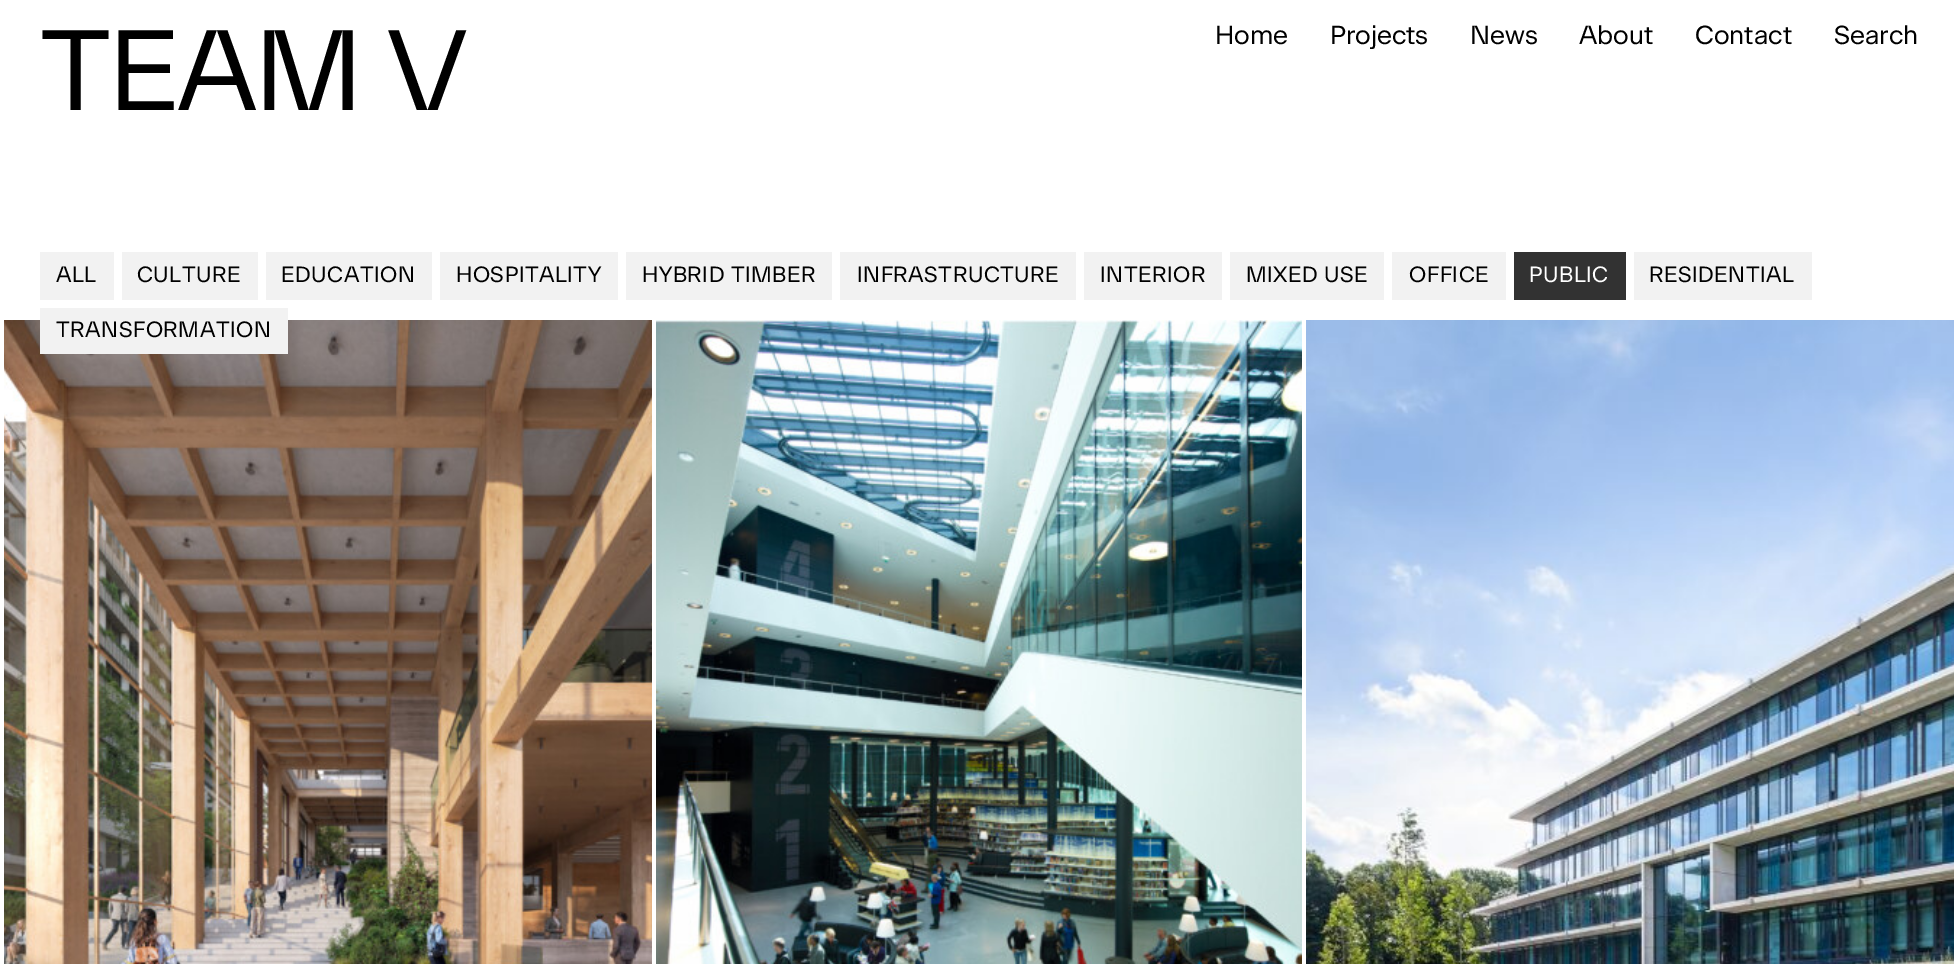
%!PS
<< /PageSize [1957 964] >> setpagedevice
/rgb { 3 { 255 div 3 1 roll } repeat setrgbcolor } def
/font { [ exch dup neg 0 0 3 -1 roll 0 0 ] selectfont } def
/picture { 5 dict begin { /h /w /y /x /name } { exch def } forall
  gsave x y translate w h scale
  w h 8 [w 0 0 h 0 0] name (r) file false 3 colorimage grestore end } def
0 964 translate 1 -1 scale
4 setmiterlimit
255 255 255 rgb
0 0 1957 964 rectfill
[
  [40 252 74 48 242 242 242]
  [122 252 136 48 242 242 242]
  [266 252 166 48 242 242 242]
  [440 252 178 48 242 242 242]
  [626 252 206 48 242 242 242]
  [840 252 236 48 242 242 242]
  [1084 252 138 48 242 242 242]
  [1230 252 154 48 242 242 242]
  [1392 252 114 48 242 242 242]
  [1514 252 112 48 50 50 50]
  [1634 252 178 48 242 242 242]
] { aload pop rgb rectfill } forall
(img/1.rgb) 4 320 648 644 picture
40 308 248 46 rectfill
(img/2.rgb) 656 320 646 644 picture
(img/3.rgb) 1306 320 648 644 picture
/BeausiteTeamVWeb-Regular 114 font
0 0 0 rgb
40 110 moveto -2.25 0 (TEAM V) ashow
/BeausiteTeamVWeb-Regular 26 font
[
  [(Home) 1215 44]
  [(Projects) 1330 44]
  [(News) 1470 44]
  [(About) 1579 44]
  [(Contact) 1695 44]
  [(Search) 1834 44]
] { aload pop moveto show } forall
/BeausiteTeamVWeb-Regular 22 font
56 282 moveto 0.5 0 (ALL) ashow
137 282 moveto 0.5 0 (CULTURE) ashow
281 282 moveto 0.5 0 (EDUCATION) ashow
456 282 moveto 0.5 0 (HOSPITALITY) ashow
642 282 moveto 0.5 0 (HYBRID TIMBER) ashow
857 282 moveto 0.5 0 (INFRASTRUCTURE) ashow
1100 282 moveto 0.5 0 (INTERIOR) ashow
1246 282 moveto 0.5 0 (MIXED USE) ashow
1409 282 moveto 0.5 0 (OFFICE) ashow
255 255 255 rgb
1529 282 moveto 0.5 0 (PUBLIC) ashow
0 0 0 rgb
1649 282 moveto 0.5 0 (RESIDENTIAL) ashow
56 337 moveto 0.5 0 (TRANSFORMATION) ashow
showpage
